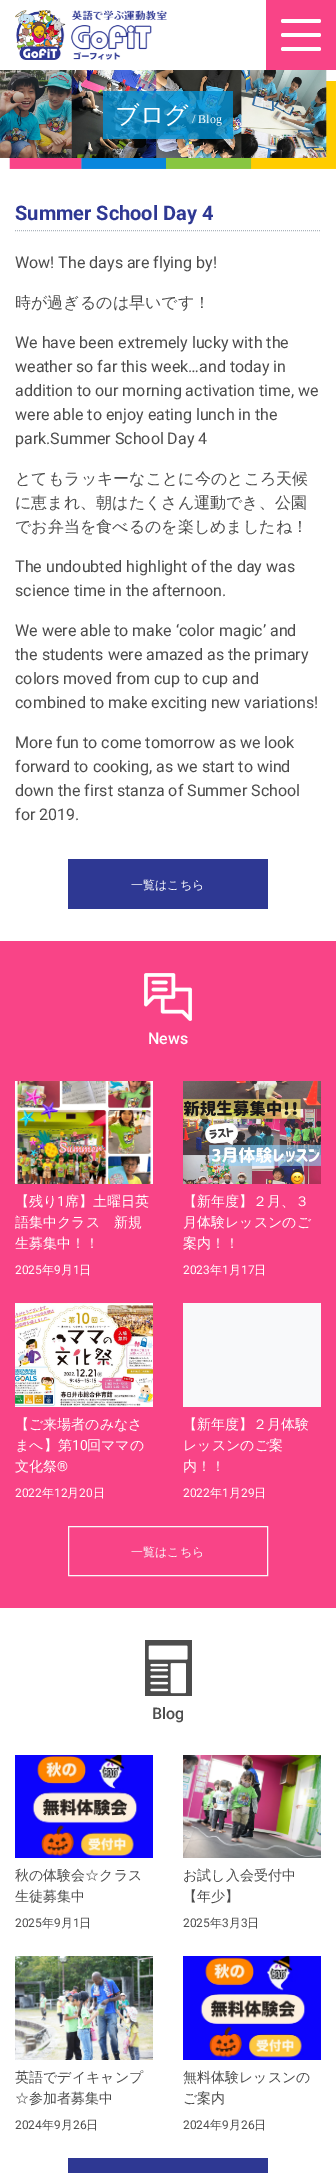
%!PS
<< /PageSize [336 2173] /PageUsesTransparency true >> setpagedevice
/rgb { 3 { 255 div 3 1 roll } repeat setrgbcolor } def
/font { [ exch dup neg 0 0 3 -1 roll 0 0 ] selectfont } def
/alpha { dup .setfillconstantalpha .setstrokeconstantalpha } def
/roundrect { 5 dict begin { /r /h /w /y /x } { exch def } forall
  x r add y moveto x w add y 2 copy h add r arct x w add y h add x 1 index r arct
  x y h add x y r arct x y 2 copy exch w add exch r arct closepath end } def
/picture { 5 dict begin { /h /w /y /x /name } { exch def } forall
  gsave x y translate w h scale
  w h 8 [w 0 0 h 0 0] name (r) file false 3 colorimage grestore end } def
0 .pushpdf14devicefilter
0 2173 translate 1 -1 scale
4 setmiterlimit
255 255 255 rgb
0 0 336 2173 rectfill
(img/1.rgb) 15 10 152 50 picture
249 68 135 rgb
266 0 70 70 rectfill
255 255 255 rgb
281 19 40 4 2 roundrect fill
281 33 40 4 2 roundrect fill
281 47 40 4 2 roundrect fill
(img/2.rgb) 0 70 336 99 picture
0.8 alpha
0 145 213 rgb
103 91 130 48 rectfill
1 alpha
173 181 189 rgb
[1 1] 0 setdash
15 230.5 moveto 321 230.5 lineto stroke
46 56 147 rgb
68 859 200 50 rectfill
249 68 135 rgb
0 941 336 667 rectfill
(img/3.rgb) 144 973 48 48 picture
(img/4.rgb) 15 1081 138 103 picture
(img/5.rgb) 183 1081 138 103 picture
(img/6.rgb) 15 1303 138 104 picture
248 249 250 rgb
183 1303 138 104 rectfill
[] 0 setdash
68.5 1526.5 199 49 rectstroke
(img/7.rgb) 145 1640 47 56 picture
(img/8.rgb) 15 1755 138 103 picture
(img/9.rgb) 183 1755 138 103 picture
(img/10.rgb) 15 1956 138 104 picture
(img/11.rgb) 183 1956 138 104 picture
46 56 147 rgb
68 2158 200 15 rectfill
/WenQuanYiZenHei-Medium 24 font
255 255 255 rgb
115 123 moveto (ブログ) show
/LiberationSerif-Regular 12 font
192 123 moveto (/ Blog) show
/Roboto-Bold 20 font
46 56 147 rgb
15 220 moveto (Summer School Day 4) show
/Roboto-Regular 16 font
76 76 76 rgb
15 268 moveto (Wow! The days are flying by!) show
/WenQuanYiZenHei-Medium 16 font
15 308 moveto (時が過ぎるのは早いです！) show
/Roboto-Regular 16 font
[
  [(We have been extremely lucky with the) 15 348]
  [(weather so far this week…and today in) 15 372]
  [(addition to our morning activation time, we) 15 396]
  [(were able to enjoy eating lunch in the) 15 420]
  [(park.Summer School Day 4) 15 444]
] { aload pop moveto show } forall
/WenQuanYiZenHei-Medium 16 font
[
  [(とてもラッキーなことに今のところ天候) 15 484]
  [(に恵まれ、朝はたくさん運動でき、公園) 15 508]
  [(でお弁当を食べるのを楽しめましたね！) 15 532]
] { aload pop moveto show } forall
/Roboto-Regular 16 font
[
  [(The undoubted highlight of the day was) 15 572]
  [(science time in the afternoon.) 15 596]
  [(We were able to make ‘color magic’ and) 15 636]
  [(the students were amazed as the primary) 15 660]
  [(colors moved from cup to cup and) 15 684]
  [(combined to make exciting new variations!) 15 708]
  [(More fun to come tomorrow as we look) 15 748]
  [(forward to cooking, as we start to wind) 15 772]
  [(down the first stanza of Summer School) 15 796]
  [(for 2019.) 15 820]
] { aload pop moveto show } forall
/WenQuanYiZenHei-Medium 12 font
255 255 255 rgb
131 889 moveto (一覧はこちら) show
/Roboto-Medium 16 font
148 1044 moveto (News) show
/WenQuanYiZenHei-Medium 14 font
15 1206 moveto (【残り) show
/Roboto-Regular 14 font
57 1206 moveto (1) show
/WenQuanYiZenHei-Medium 14 font
[
  [(席】土曜日英) 65 1206]
  [(語集中クラス　新規) 15 1227]
  [(生募集中！！) 15 1248]
] { aload pop moveto show } forall
/Roboto-Regular 12 font
15 1274 moveto (2025) show
/WenQuanYiZenHei-Medium 12 font
42 1274 moveto (年) show
/Roboto-Regular 12 font
54 1274 moveto (9) show
/WenQuanYiZenHei-Medium 12 font
61 1274 moveto (月) show
/Roboto-Regular 12 font
73 1274 moveto (1) show
/WenQuanYiZenHei-Medium 12 font
79 1274 moveto (日) show
/WenQuanYiZenHei-Medium 14 font
[
  [(【新年度】２月、３) 183 1206]
  [(月体験レッスンのご) 183 1227]
  [(案内！！) 183 1248]
] { aload pop moveto show } forall
/Roboto-Regular 12 font
183 1274 moveto (2023) show
/WenQuanYiZenHei-Medium 12 font
210 1274 moveto (年) show
/Roboto-Regular 12 font
222 1274 moveto (1) show
/WenQuanYiZenHei-Medium 12 font
229 1274 moveto (月) show
/Roboto-Regular 12 font
241 1274 moveto (17) show
/WenQuanYiZenHei-Medium 12 font
254 1274 moveto (日) show
/WenQuanYiZenHei-Medium 14 font
15 1429 moveto (【ご来場者のみなさ) show
15 1450 moveto (まへ】第) show
/Roboto-Regular 14 font
72 1450 moveto (10) show
/WenQuanYiZenHei-Medium 14 font
87 1450 moveto (回ママの) show
15 1471 moveto (文化祭) show
/Roboto-Regular 14 font
57 1471 moveto (®) show
/Roboto-Regular 12 font
15 1497 moveto (2022) show
/WenQuanYiZenHei-Medium 12 font
42 1497 moveto (年) show
/Roboto-Regular 12 font
54 1497 moveto (12) show
/WenQuanYiZenHei-Medium 12 font
67 1497 moveto (月) show
/Roboto-Regular 12 font
79 1497 moveto (20) show
/WenQuanYiZenHei-Medium 12 font
93 1497 moveto (日) show
/WenQuanYiZenHei-Medium 14 font
[
  [(【新年度】２月体験) 183 1429]
  [(レッスンのご案) 183 1450]
  [(内！！) 183 1471]
] { aload pop moveto show } forall
/Roboto-Regular 12 font
183 1497 moveto (2022) show
/WenQuanYiZenHei-Medium 12 font
210 1497 moveto (年) show
/Roboto-Regular 12 font
222 1497 moveto (1) show
/WenQuanYiZenHei-Medium 12 font
229 1497 moveto (月) show
/Roboto-Regular 12 font
241 1497 moveto (29) show
/WenQuanYiZenHei-Medium 12 font
254 1497 moveto (日) show
248 249 250 rgb
131 1556 moveto (一覧はこちら) show
/Roboto-Medium 16 font
76 76 76 rgb
152 1719 moveto (Blog) show
/WenQuanYiZenHei-Medium 14 font
15 1880 moveto (秋の体験会☆クラス) show
15 1901 moveto (生徒募集中) show
/Roboto-Regular 12 font
15 1927 moveto (2025) show
/WenQuanYiZenHei-Medium 12 font
42 1927 moveto (年) show
/Roboto-Regular 12 font
54 1927 moveto (9) show
/WenQuanYiZenHei-Medium 12 font
61 1927 moveto (月) show
/Roboto-Regular 12 font
73 1927 moveto (1) show
/WenQuanYiZenHei-Medium 12 font
79 1927 moveto (日) show
/WenQuanYiZenHei-Medium 14 font
183 1880 moveto (お試し入会受付中) show
183 1901 moveto (【年少】) show
/Roboto-Regular 12 font
183 1927 moveto (2025) show
/WenQuanYiZenHei-Medium 12 font
210 1927 moveto (年) show
/Roboto-Regular 12 font
222 1927 moveto (3) show
/WenQuanYiZenHei-Medium 12 font
229 1927 moveto (月) show
/Roboto-Regular 12 font
241 1927 moveto (3) show
/WenQuanYiZenHei-Medium 12 font
247 1927 moveto (日) show
/WenQuanYiZenHei-Medium 14 font
15 2082 moveto (英語でデイキャンプ) show
15 2103 moveto (☆参加者募集中) show
/Roboto-Regular 12 font
15 2129 moveto (2024) show
/WenQuanYiZenHei-Medium 12 font
42 2129 moveto (年) show
/Roboto-Regular 12 font
54 2129 moveto (9) show
/WenQuanYiZenHei-Medium 12 font
61 2129 moveto (月) show
/Roboto-Regular 12 font
73 2129 moveto (26) show
/WenQuanYiZenHei-Medium 12 font
86 2129 moveto (日) show
/WenQuanYiZenHei-Medium 14 font
183 2082 moveto (無料体験レッスンの) show
183 2103 moveto (ご案内) show
/Roboto-Regular 12 font
183 2129 moveto (2024) show
/WenQuanYiZenHei-Medium 12 font
210 2129 moveto (年) show
/Roboto-Regular 12 font
222 2129 moveto (9) show
/WenQuanYiZenHei-Medium 12 font
229 2129 moveto (月) show
/Roboto-Regular 12 font
241 2129 moveto (26) show
/WenQuanYiZenHei-Medium 12 font
254 2129 moveto (日) show
.poppdf14devicefilter showpage
